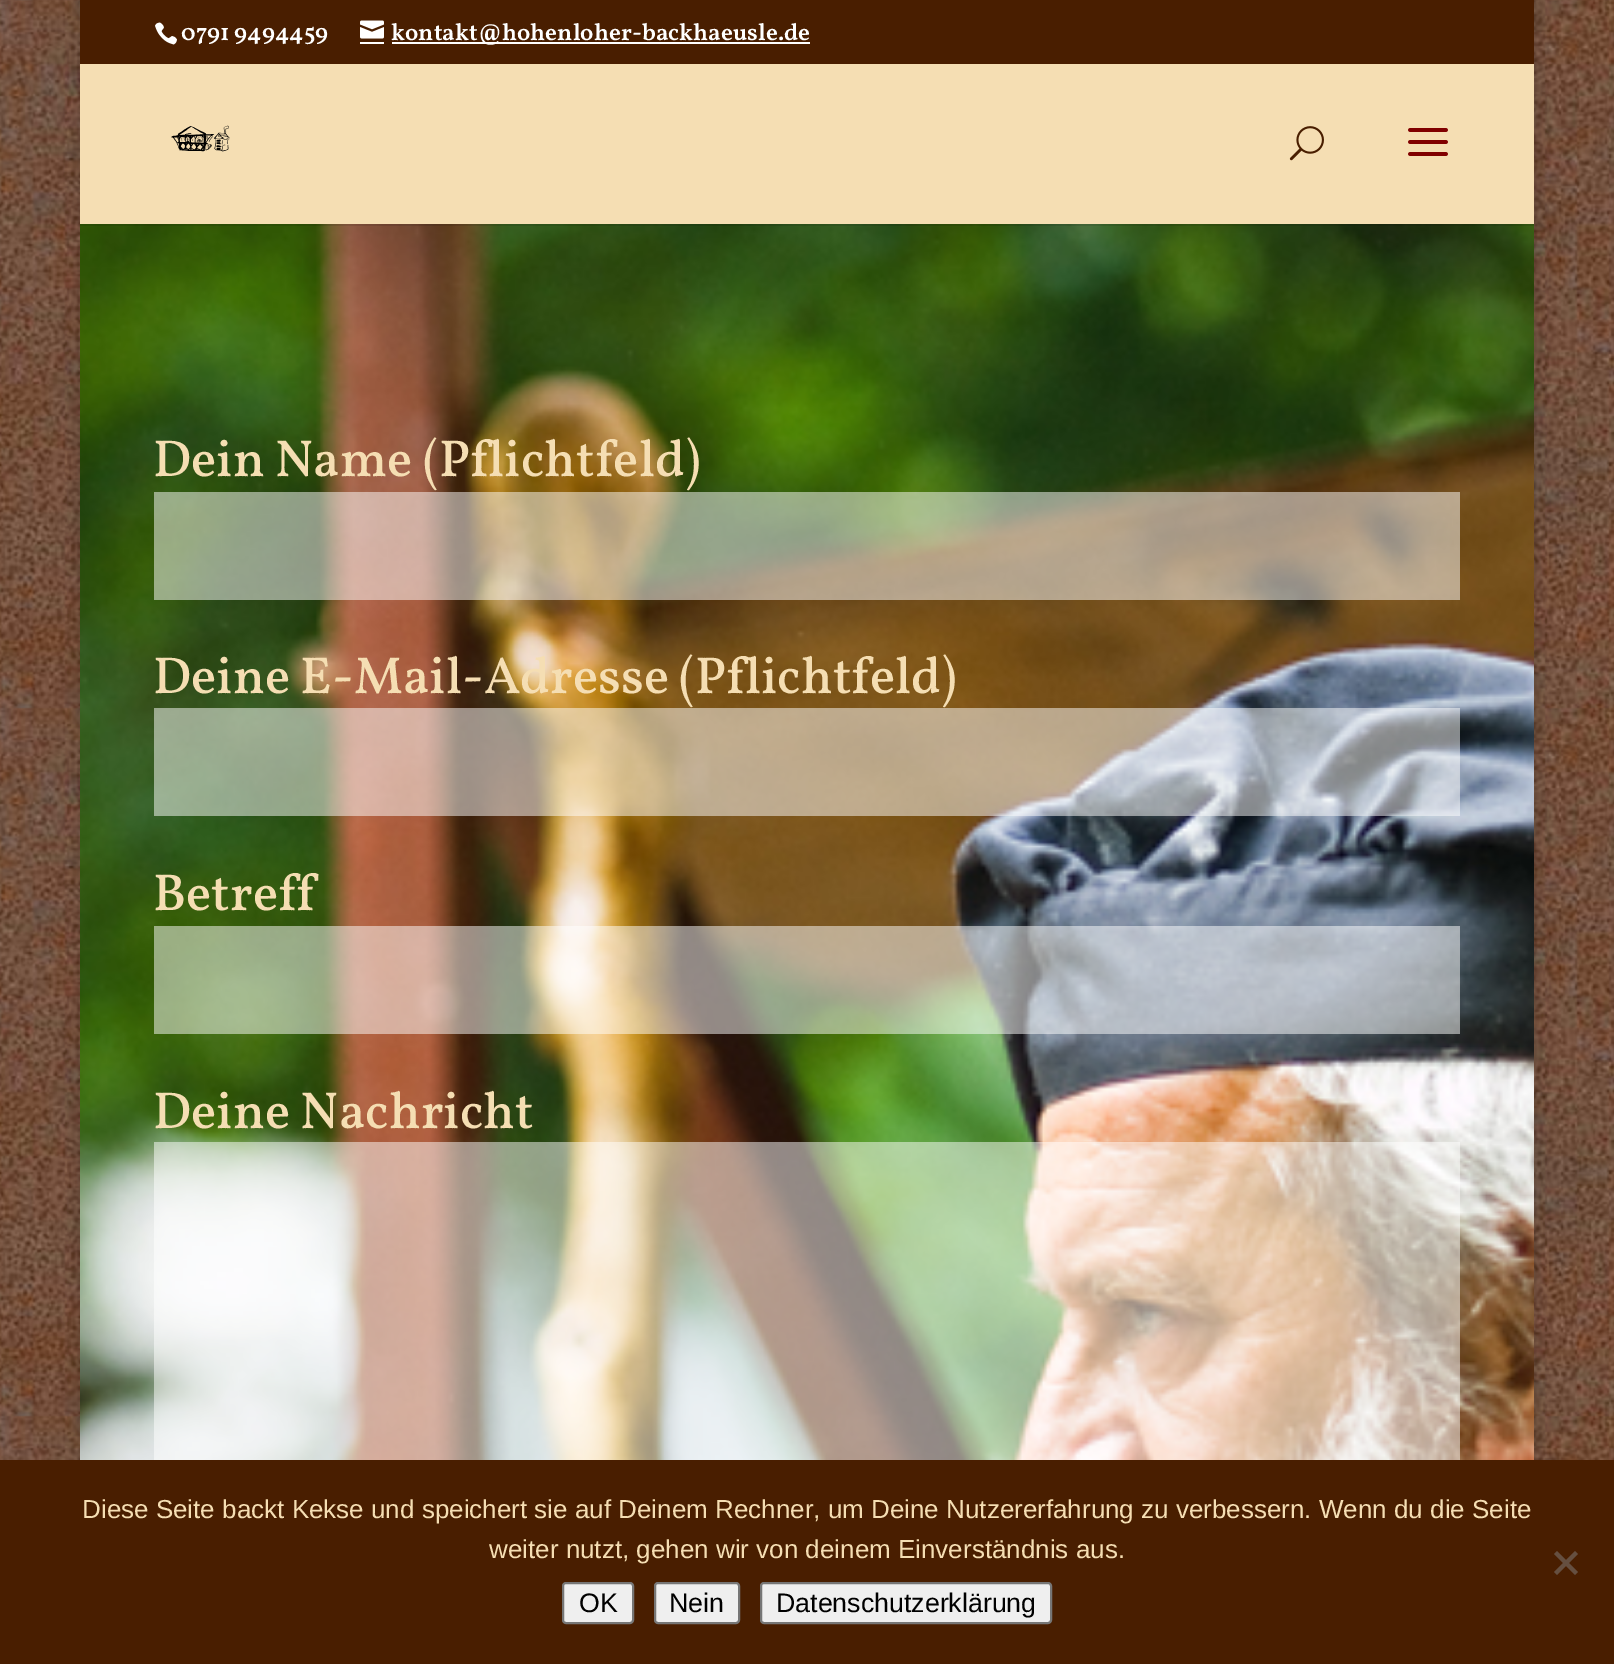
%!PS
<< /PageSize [1614 1664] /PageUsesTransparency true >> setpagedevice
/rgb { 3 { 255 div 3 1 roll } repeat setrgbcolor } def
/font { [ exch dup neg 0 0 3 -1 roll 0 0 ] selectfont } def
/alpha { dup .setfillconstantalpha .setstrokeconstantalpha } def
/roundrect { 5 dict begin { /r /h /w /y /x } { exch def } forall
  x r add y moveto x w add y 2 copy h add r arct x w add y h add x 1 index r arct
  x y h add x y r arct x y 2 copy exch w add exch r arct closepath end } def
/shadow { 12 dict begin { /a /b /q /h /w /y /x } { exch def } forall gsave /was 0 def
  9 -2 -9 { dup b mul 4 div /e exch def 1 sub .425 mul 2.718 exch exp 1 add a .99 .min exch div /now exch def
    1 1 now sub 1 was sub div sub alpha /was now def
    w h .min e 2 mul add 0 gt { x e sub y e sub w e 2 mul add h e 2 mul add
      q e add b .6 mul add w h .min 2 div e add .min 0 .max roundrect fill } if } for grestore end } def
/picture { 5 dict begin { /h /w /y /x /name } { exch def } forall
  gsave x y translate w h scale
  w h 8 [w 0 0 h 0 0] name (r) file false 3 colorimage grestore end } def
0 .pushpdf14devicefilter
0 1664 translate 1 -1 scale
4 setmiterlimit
255 255 255 rgb
0 0 1614 1664 rectfill
(img/1.rgb) 0 0 1614 1460 picture
0 0 0 rgb
80 0 1454 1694 0 10 0.2 shadow
73 30 0 rgb
80 0 1454 64 rectfill
(img/2.rgb) 155 22 22 23 picture
(img/3.rgb) 360 20 24 19 picture
255 255 255 rgb
360 42 24 2 rectfill
392 42 418 2 rectfill
(img/7.rgb) 80 224 1454 1236 picture
0.1 alpha
0 0 0 rgb
80 224 1454 2 rectfill
1 alpha
245 222 179 rgb
80 64 1454 160 rectfill
(img/4.rgb) 171 125 59 27 picture
(img/5.rgb) 1289 126 35 35 picture
(img/6.rgb) 1408 128 40 28 picture
0.5 alpha
[
  [154 492 1306 108 255 255 255]
  [154 708 1306 108 255 255 255]
  [154 926 1306 108 255 255 255]
  [154 1142 1306 318 255 255 255]
] { aload pop rgb rectfill } forall
1 alpha
[
  [0 1460 1614 204 73 30 0]
] { aload pop rgb rectfill } forall
101 79 64 rgb
1575 1551 moveto 1578 1554 lineto 1557 1575 lineto 1554 1572 lineto closepath fill
1554 1554 moveto 1557 1551 lineto 1578 1572 lineto 1575 1575 lineto closepath fill
239 239 239 rgb
563 1583 70 40 3 roundrect gsave fill grestore
118 118 118 rgb
2 setlinewidth
stroke
239 239 239 rgb
655 1583 84 40 3 roundrect gsave fill grestore
118 118 118 rgb
stroke
239 239 239 rgb
761 1583 290 40 3 roundrect gsave fill grestore
118 118 118 rgb
stroke
/Vollkorn-SemiBold 24 font
255 255 255 rgb
181 40 moveto (0791 9494459) show
391 40 moveto (kontakt@hohenloher-backhaeusle.de) show
/Vollkorn-Medium 52 font
245 222 179 rgb
[
  [(Dein Name \(Pflichtfeld\)) 153 476]
  [(Deine E-Mail-Adresse \(Pflichtfeld\)) 153 693]
  [(Betreff) 153 910]
  [(Deine Nachricht) 153 1128]
] { aload pop moveto show } forall
/LiberationSans-Regular 26 font
82 1518 moveto (Diese Seite backt Kekse und speichert sie auf Deinem Rechner, um Deine Nutzererfahrung zu verbessern. Wenn du die Seite) show
489 1558 moveto (weiter nutzt, gehen wir von deinem Einverständnis aus.) show
/LiberationSans-Regular 26.75 font
0 0 0 rgb
[
  [(OK) 579 1612]
  [(Nein) 669 1612]
  [(Datenschutzerklärung) 776 1612]
] { aload pop moveto show } forall
.poppdf14devicefilter showpage
